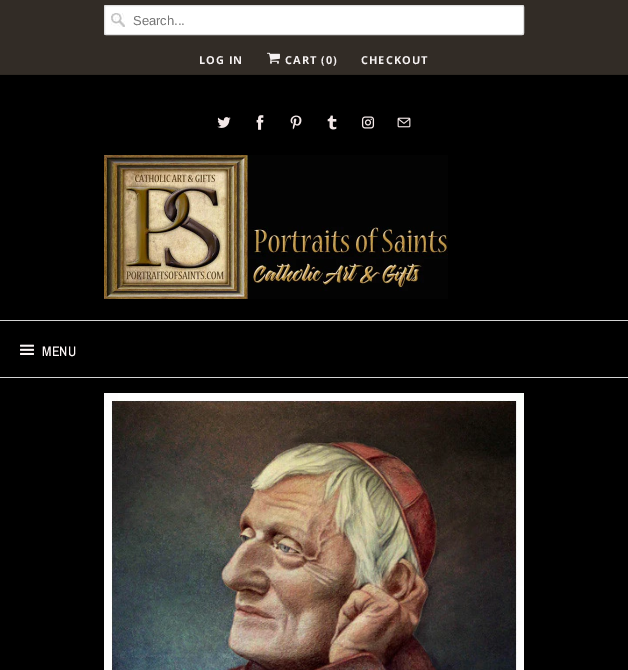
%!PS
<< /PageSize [628 670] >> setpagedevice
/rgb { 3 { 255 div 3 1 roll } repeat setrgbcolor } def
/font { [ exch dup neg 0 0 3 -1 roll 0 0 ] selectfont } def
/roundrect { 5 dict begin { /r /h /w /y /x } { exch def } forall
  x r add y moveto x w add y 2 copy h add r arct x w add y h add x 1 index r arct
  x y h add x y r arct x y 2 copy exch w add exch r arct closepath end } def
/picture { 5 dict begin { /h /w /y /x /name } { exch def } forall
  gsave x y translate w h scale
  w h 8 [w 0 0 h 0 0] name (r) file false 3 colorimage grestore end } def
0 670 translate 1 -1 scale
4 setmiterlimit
0 0 0 rgb
0 0 628 670 rectfill
50 44 38 rgb
0 0 628 74 rectfill
45 40 34 rgb
0 74 628 1 rectfill
255 255 255 rgb
104 5 420 30 2 roundrect fill
(img/1.rgb) 111 13 14 14 picture
223 223 223 rgb
104.5 5.5 419 29 1.5 roundrect stroke
(img/2.rgb) 267 52 13 12 picture
(img/3.rgb) 217 117 14 11 picture
(img/4.rgb) 256 115 8 15 picture
(img/5.rgb) 290 115 12 15 picture
(img/6.rgb) 327 115 10 15 picture
(img/7.rgb) 361 116 14 13 picture
(img/8.rgb) 397 117 14 11 picture
(img/9.rgb) 104 155 344 144 picture
211 211 211 rgb
0 320 628 1 rectfill
0 377 628 1 rectfill
(img/10.rgb) 20 344 14 11 picture
(img/11.rgb) 104 393 420 277 picture
/LiberationSans-Regular 13 font
117 117 117 rgb
133 25 moveto (Search...) show
/OpenSans-Bold 11 font
246 242 242 rgb
199 64 moveto 1 0 (LOG IN) ashow
285 64 moveto 1 0 (CART \(0\)) ashow
361 64 moveto 1 0 (CHECKOUT) ashow
/ArchivoNarrow-Medium 14 font
253 247 247 rgb
42 356 moveto (MENU) show
showpage
